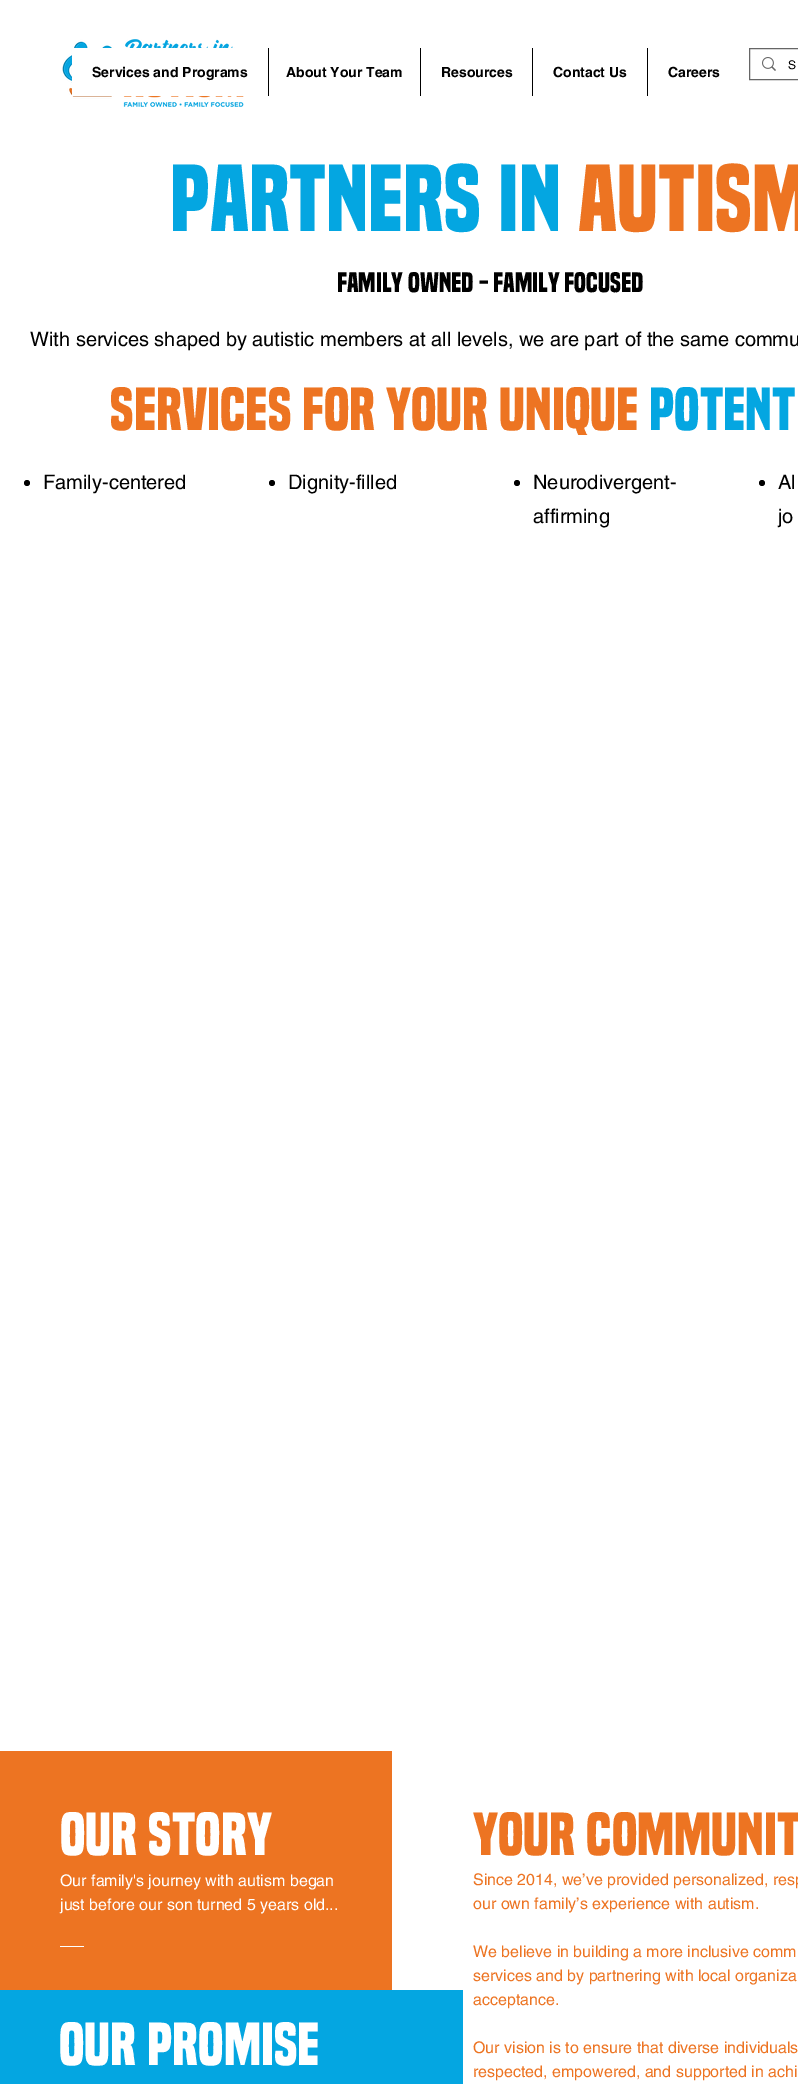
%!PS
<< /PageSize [798 2084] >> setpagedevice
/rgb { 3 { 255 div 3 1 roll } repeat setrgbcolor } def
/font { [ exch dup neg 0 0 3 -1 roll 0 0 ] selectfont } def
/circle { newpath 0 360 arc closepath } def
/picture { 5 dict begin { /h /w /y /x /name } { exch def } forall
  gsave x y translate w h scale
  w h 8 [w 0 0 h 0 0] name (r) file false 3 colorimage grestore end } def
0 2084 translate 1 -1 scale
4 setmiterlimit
255 255 255 rgb
0 0 798 2084 rectfill
(img/1.rgb) 62 39 182 68 picture
102 102 102 rgb
749.5 48.5 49 31 rectstroke
(img/2.rgb) 762 57 14 14 picture
[
  [72 48 172 48 255 255 255]
  [268 48 1 48 0 0 0]
  [420 48 1 48 0 0 0]
  [532 48 1 48 0 0 0]
  [647 48 1 48 0 0 0]
] { aload pop rgb rectfill } forall
27 483 3 circle fill
272 483 3 circle fill
517 483 3 circle fill
762 483 3 circle fill
[
  [0 1751 392 239 237 116 34]
  [60 1946 24 1 255 255 255]
  [0 1990 463 94 4 166 225]
] { aload pop rgb rectfill } forall
/helvetica-Regular 12 font
0 0 0 rgb
788 69 moveto (S) show
/helvetica-Bold 14 font
[
  [(Services and Programs) 92 77]
  [(About Your Team) 286 77]
  [(Resources) 441 77]
  [(Contact Us) 553 77]
  [(Careers) 668 77]
] { aload pop moveto show } forall
/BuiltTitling-Bold 88 font
4 166 225 rgb
170 231 moveto (Partners in) show
237 116 34 rgb
578 231 moveto (Autism) show
/BuiltTitling-Bold 26 font
0 0 0 rgb
337 292 moveto (Family owned - Family Focused) show
/helvetica-Regular 20 font
30 346 moveto (With services shaped by autistic members at all levels, we are part of the same commu) show
/BuiltTitling-Bold 56 font
237 116 34 rgb
110 430 moveto (Services for your Unique) show
4 166 225 rgb
649 430 moveto (Potent) show
/helvetica-Regular 20 font
0 0 0 rgb
[
  [(Family-centered) 43 489]
  [(Dignity-filled) 288 489]
  [(Neurodivergent-) 533 489]
  [(affirming) 533 523]
  [(Al) 778 489]
  [(jo) 778 523]
] { aload pop moveto show } forall
/BuiltTitling-Bold 56 font
255 255 255 rgb
60 1855 moveto (Our Story) show
/helvetica-Regular 16 font
60 1886 moveto (Our family's journey with autism began) show
60 1910 moveto (just before our son turned 5 years old...) show
/BuiltTitling-Bold 56 font
59 2065 moveto (Our Promise) show
237 116 34 rgb
473 1855 moveto (your communit) show
/helvetica-Regular 16 font
[
  [(Since 2014, we’ve provided personalized, resp) 473 1885]
  [(our own family’s experience with autism.) 473 1909]
  [(We believe in building a more inclusive comm) 473 1957]
  [(services and by partnering with local organiza) 473 1981]
  [(acceptance.) 473 2005]
  [(Our vision is to ensure that diverse individuals) 473 2053]
  [(respected, empowered, and supported in achi) 473 2077]
] { aload pop moveto show } forall
showpage
